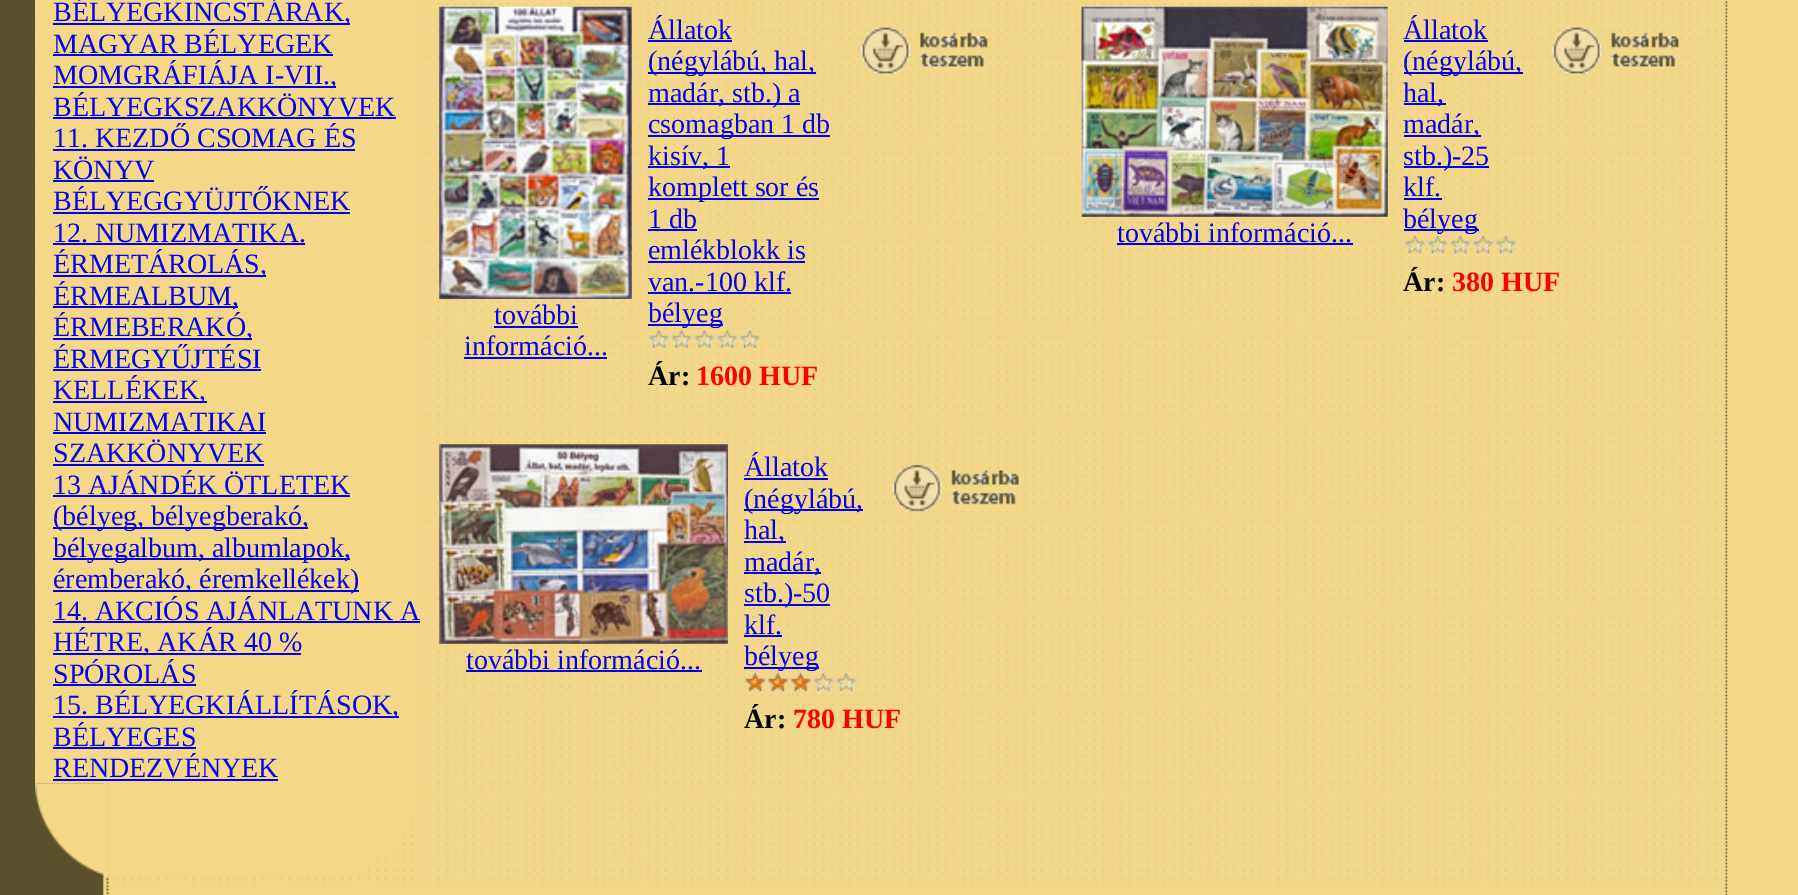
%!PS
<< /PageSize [1798 895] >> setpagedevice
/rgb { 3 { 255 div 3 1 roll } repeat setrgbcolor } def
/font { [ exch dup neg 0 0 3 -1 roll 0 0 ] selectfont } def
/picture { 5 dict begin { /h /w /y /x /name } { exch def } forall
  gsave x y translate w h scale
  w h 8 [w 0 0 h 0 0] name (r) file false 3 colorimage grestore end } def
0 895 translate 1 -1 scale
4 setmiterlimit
244 215 135 rgb
0 0 1798 895 rectfill
90 81 44 rgb
0 0 35 895 rectfill
(img/1.rgb) 35 783 379 112 picture
(img/2.rgb) 35 0 379 784 picture
[
  [53 23 297 2 0 0 238]
  [53 54 280 2 0 0 238]
  [53 86 283 2 0 0 238]
  [53 117 343 2 0 0 238]
  [53 149 302 2 0 0 238]
  [53 180 101 2 0 0 238]
  [53 212 297 2 0 0 238]
  [53 243 252 2 0 0 238]
  [53 275 213 2 0 0 238]
  [53 306 185 2 0 0 238]
  [53 338 199 2 0 0 238]
  [53 369 208 2 0 0 238]
  [53 401 154 2 0 0 238]
  [53 432 213 2 0 0 238]
  [53 464 211 2 0 0 238]
  [53 495 297 2 0 0 238]
  [53 527 255 2 0 0 238]
  [53 558 297 2 0 0 238]
  [53 590 306 2 0 0 238]
  [53 621 367 2 0 0 238]
  [53 653 248 2 0 0 238]
  [53 684 143 2 0 0 238]
  [53 716 346 2 0 0 238]
  [53 747 143 2 0 0 238]
  [53 779 225 2 0 0 238]
] { aload pop rgb rectfill } forall
(img/5.rgb) 104 876 310 19 picture
(img/3.rgb) 35 783 74 94 picture
(img/4.rgb) 108 785 306 92 picture
(img/6.rgb) 420 3 1306 886 picture
(img/7.rgb) 439 6 193 293 picture
[
  [494 326 84 2 0 0 238]
  [464 357 143 2 0 0 238]
  [648 40 84 2 0 0 238]
  [648 72 168 2 0 0 238]
  [648 103 152 2 0 0 238]
  [648 135 182 2 0 0 238]
  [648 166 82 2 0 0 238]
  [648 198 171 2 0 0 238]
  [648 229 49 2 0 0 238]
  [648 261 157 2 0 0 238]
  [648 292 143 2 0 0 238]
  [648 324 75 2 0 0 238]
] { aload pop rgb rectfill } forall
(img/13.rgb) 860 27 128 49 picture
(img/14.rgb) 1081 6 307 211 picture
[
  [1117 243 236 2 0 0 238]
  [1404 40 84 2 0 0 238]
  [1404 72 119 2 0 0 238]
  [1404 103 42 2 0 0 238]
  [1404 135 77 2 0 0 238]
  [1404 166 85 2 0 0 238]
  [1404 198 38 2 0 0 238]
  [1404 229 75 2 0 0 238]
] { aload pop rgb rectfill } forall
(img/20.rgb) 1551 27 128 49 picture
(img/21.rgb) 439 444 289 200 picture
[
  [466 670 236 2 0 0 238]
  [744 478 84 2 0 0 238]
  [744 509 119 2 0 0 238]
  [744 541 42 2 0 0 238]
  [744 572 77 2 0 0 238]
  [744 604 86 2 0 0 238]
  [744 635 38 2 0 0 238]
  [744 667 75 2 0 0 238]
] { aload pop rgb rectfill } forall
(img/27.rgb) 892 464 127 49 picture
(img/28.rgb) 1725 0 3 895 picture
/LiberationSerif-Regular 28 font
[
  [(BÉLYEGKINCSTÁRAK,) 53 21]
  [(MAGYAR BÉLYEGEK) 53 53]
  [(MOMGRÁFIÁJA I-VII.,) 53 84]
  [(BÉLYEGKSZAKKÖNYVEK) 53 116]
  [(11. KEZDŐ CSOMAG ÉS) 53 147]
  [(KÖNYV) 53 179]
  [(BÉLYEGGYÜJTŐKNEK) 53 210]
  [(12. NUMIZMATIKA.) 53 242]
  [(ÉRMETÁROLÁS,) 53 273]
  [(ÉRMEALBUM,) 53 305]
  [(ÉRMEBERAKÓ,) 53 336]
  [(ÉRMEGYŰJTÉSI) 53 368]
  [(KELLÉKEK,) 53 399]
  [(NUMIZMATIKAI) 53 431]
  [(SZAKKÖNYVEK) 53 462]
  [(13 AJÁNDÉK ÖTLETEK) 53 494]
  [(\(bélyeg, bélyegberakó,) 53 525]
  [(bélyegalbum, albumlapok,) 53 557]
  [(éremberakó, éremkellékek\)) 53 588]
  [(14. AKCIÓS AJÁNLATUNK A) 53 620]
  [(HÉTRE, AKÁR 40 %) 53 651]
  [(SPÓROLÁS) 53 683]
  [(15. BÉLYEGKIÁLLÍTÁSOK,) 53 714]
  [(BÉLYEGES) 53 746]
  [(RENDEZVÉNYEK) 53 777]
  [(további) 494 324]
  [(információ...) 464 355]
  [(Állatok) 648 39]
  [(\(négylábú, hal,) 648 70]
  [(madár, stb.\) a) 648 102]
  [(csomagban 1 db) 648 133]
  [(kisív, 1) 648 165]
  [(komplett sor és) 648 196]
  [(1 db) 648 228]
  [(emlékblokk is) 648 259]
  [(van.-100 klf.) 648 291]
  [(bélyeg) 648 322]
] { aload pop moveto show } forall
(img/8.rgb) 647 328 24 22 picture
(img/9.rgb) 670 328 23 22 picture
(img/10.rgb) 693 328 23 22 picture
(img/11.rgb) 715 328 24 22 picture
(img/12.rgb) 738 328 24 22 picture
/LiberationSerif-Bold 28 font
0 0 0 rgb
648 385 moveto (Ár:) show
255 0 0 rgb
696 385 moveto (1600 HUF) show
/LiberationSerif-Regular 28 font
0 0 238 rgb
[
  [(további információ...) 1117 242]
  [(Állatok) 1403 39]
  [(\(négylábú,) 1403 70]
  [(hal,) 1403 102]
  [(madár,) 1403 133]
  [(stb.\)-25) 1403 165]
  [(klf.) 1403 196]
  [(bélyeg) 1403 228]
] { aload pop moveto show } forall
(img/15.rgb) 1403 234 24 22 picture
(img/16.rgb) 1426 234 23 22 picture
(img/17.rgb) 1449 234 23 22 picture
(img/18.rgb) 1471 234 24 22 picture
(img/19.rgb) 1494 234 24 22 picture
/LiberationSerif-Bold 28 font
0 0 0 rgb
1403 291 moveto (Ár:) show
255 0 0 rgb
1452 291 moveto (380 HUF) show
/LiberationSerif-Regular 28 font
0 0 238 rgb
[
  [(további információ...) 466 669]
  [(Állatok) 744 476]
  [(\(négylábú,) 744 508]
  [(hal,) 744 539]
  [(madár,) 744 571]
  [(stb.\)-50) 744 602]
  [(klf.) 744 634]
  [(bélyeg) 744 665]
] { aload pop moveto show } forall
(img/22.rgb) 743 671 24 22 picture
(img/23.rgb) 766 671 24 22 picture
(img/24.rgb) 789 671 23 22 picture
(img/25.rgb) 812 671 23 22 picture
(img/26.rgb) 834 671 24 22 picture
/LiberationSerif-Bold 28 font
0 0 0 rgb
744 728 moveto (Ár:) show
255 0 0 rgb
793 728 moveto (780 HUF) show
showpage
